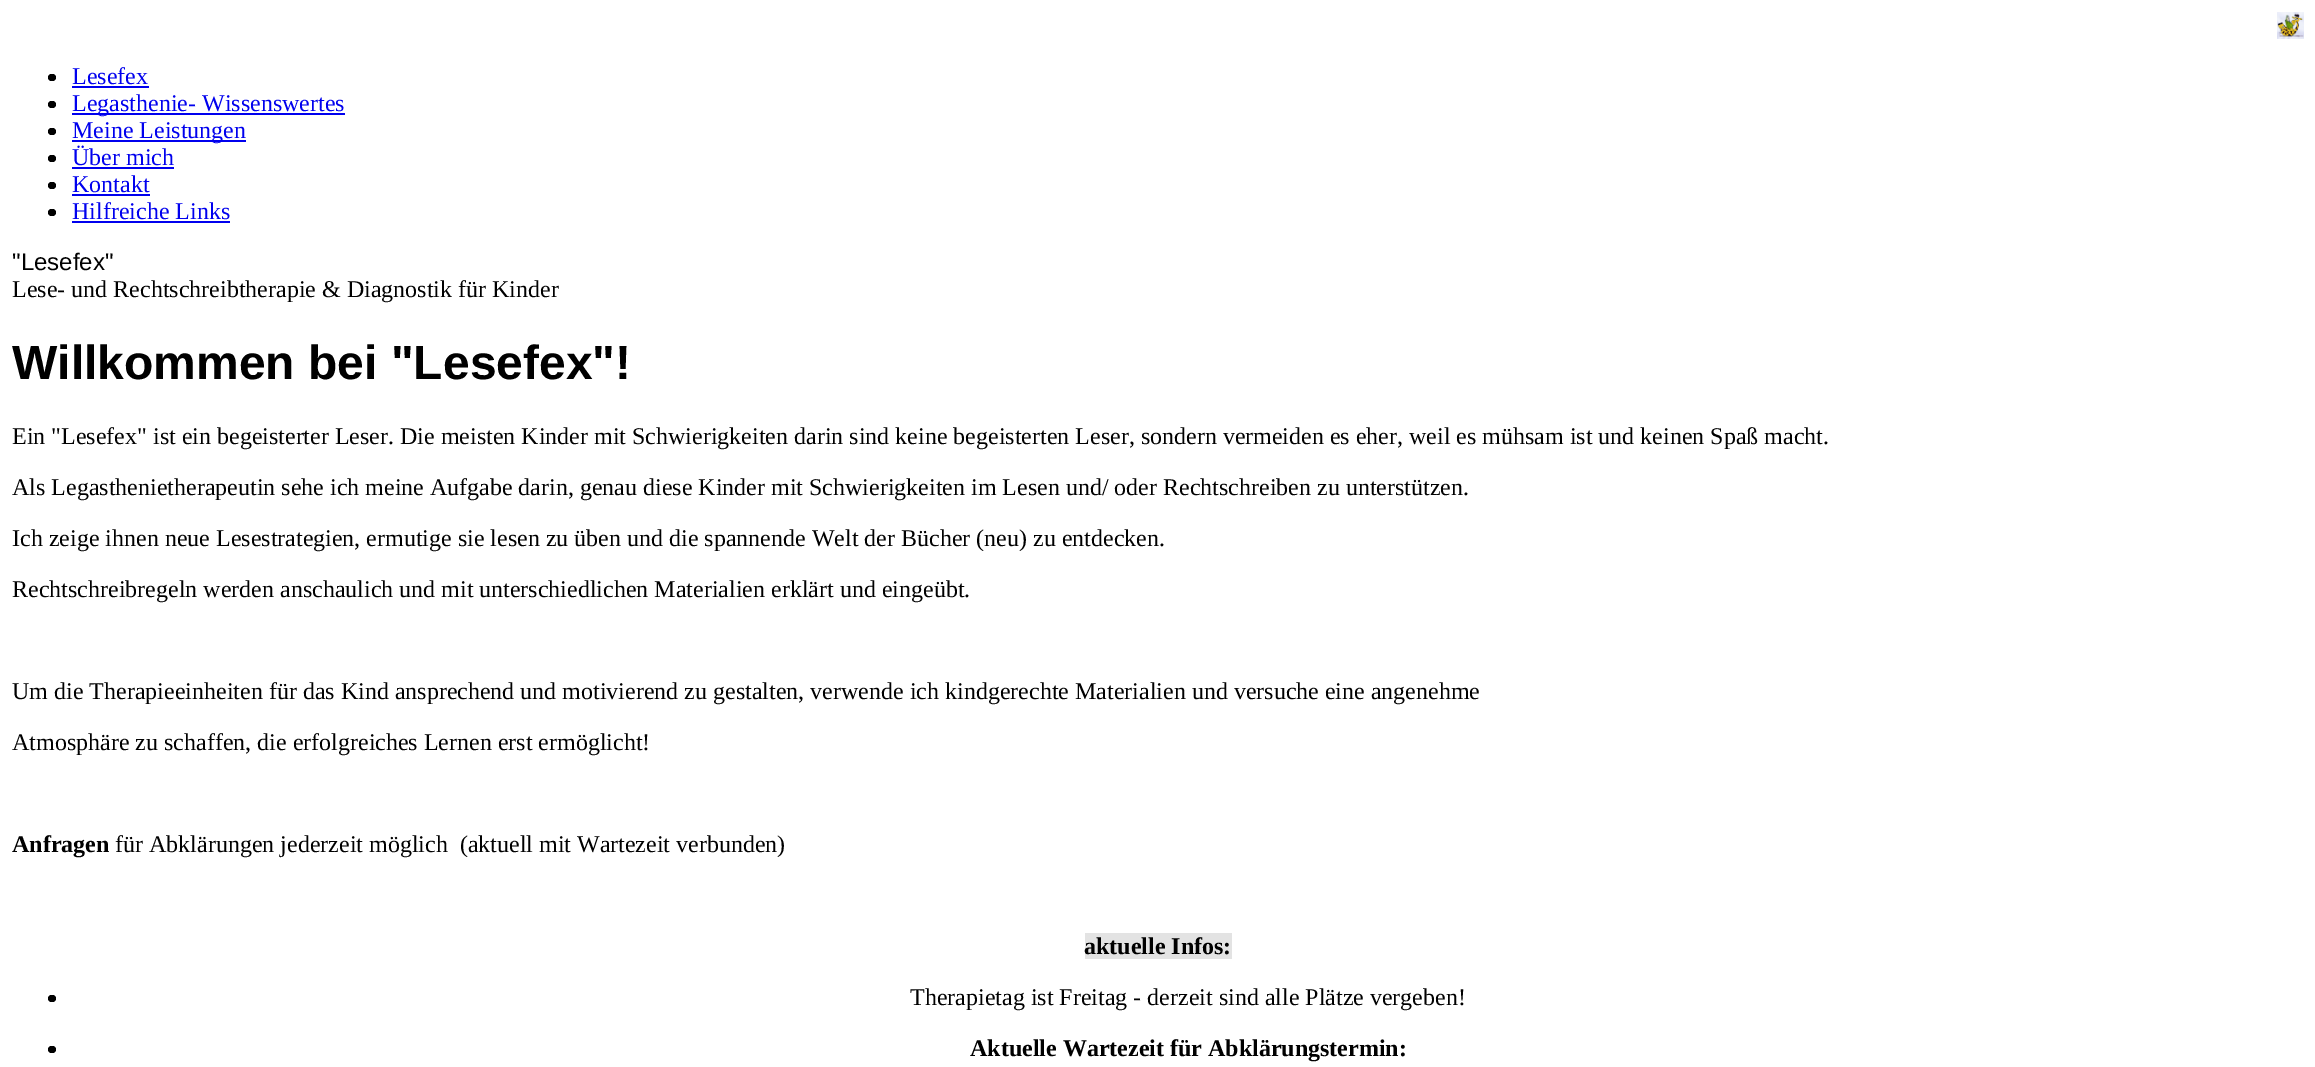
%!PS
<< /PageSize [2315 1067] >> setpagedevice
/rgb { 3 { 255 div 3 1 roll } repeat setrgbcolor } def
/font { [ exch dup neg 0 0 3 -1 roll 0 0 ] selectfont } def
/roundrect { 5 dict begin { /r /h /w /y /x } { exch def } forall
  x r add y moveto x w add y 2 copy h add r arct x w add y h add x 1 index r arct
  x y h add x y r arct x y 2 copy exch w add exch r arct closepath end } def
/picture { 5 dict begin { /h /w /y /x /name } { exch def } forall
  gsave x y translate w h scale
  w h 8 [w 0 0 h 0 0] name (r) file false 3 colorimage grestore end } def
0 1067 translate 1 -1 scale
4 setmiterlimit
255 255 255 rgb
0 0 2315 1067 rectfill
(img/1.rgb) 2277 12 27 27 picture
0 0 0 rgb
48 74 8 7 3.5 roundrect fill
0 0 238 rgb
72 86 77 2 rectfill
0 0 0 rgb
48 101 8 7 3.5 roundrect fill
0 0 238 rgb
72 113 273 2 rectfill
0 0 0 rgb
48 128 8 7 3.5 roundrect fill
0 0 238 rgb
72 140 174 2 rectfill
0 0 0 rgb
48 155 8 7 3.5 roundrect fill
0 0 238 rgb
72 167 102 2 rectfill
0 0 0 rgb
48 182 8 7 3.5 roundrect fill
0 0 238 rgb
72 194 78 2 rectfill
0 0 0 rgb
48 209 8 7 3.5 roundrect fill
0 0 238 rgb
72 221 158 2 rectfill
227 227 227 rgb
1085 933 147 26 rectfill
0 0 0 rgb
48 995 8 7 3.5 roundrect fill
48 1046 8 7 3.5 roundrect fill
/LiberationSerif-Regular 24 font
0 0 238 rgb
[
  [(Lesefex) 72 84]
  [(Legasthenie- Wissenswertes) 72 111]
  [(Meine Leistungen) 72 138]
  [(Über mich) 72 165]
  [(Kontakt) 72 192]
  [(Hilfreiche Links) 72 219]
] { aload pop moveto show } forall
/LiberationSans-Regular 24 font
0 0 0 rgb
12 270 moveto ("Lesefex") show
/LiberationSerif-Regular 24 font
12 297 moveto (Lese- und Rechtschreibtherapie & Diagnostik für Kinder) show
/LiberationSans-Bold 48 font
12 379 moveto (Willkommen bei "Lesefex"!) show
/LiberationSerif-Regular 24 font
[
  [(Ein "Lesefex" ist ein begeisterter Leser. Die meisten Kinder mit Schwierigkeiten darin sind keine begeisterten Leser, sondern vermeiden es eher, weil es mühsam ist und keinen Spaß macht.) 12 444]
  [(Als Legasthenietherapeutin sehe ich meine Aufgabe darin, genau diese Kinder mit Schwierigkeiten im Lesen und/ oder Rechtschreiben zu unterstützen.) 12 495]
  [(Ich zeige ihnen neue Lesestrategien, ermutige sie lesen zu üben und die spannende Welt der Bücher \(neu\) zu entdecken.) 12 546]
  [(Rechtschreibregeln werden anschaulich und mit unterschiedlichen Materialien erklärt und eingeübt.) 12 597]
  [(Um die Therapieeinheiten für das Kind ansprechend und motivierend zu gestalten, verwende ich kindgerechte Materialien und versuche eine angenehme) 12 699]
  [(Atmosphäre zu schaffen, die erfolgreiches Lernen erst ermöglicht!) 12 750]
] { aload pop moveto show } forall
/LiberationSerif-Bold 24 font
12 852 moveto (Anfragen) show
/LiberationSerif-Regular 24 font
115 852 moveto (für Abklärungen jederzeit möglich  \(aktuell mit Wartezeit verbunden\)) show
/LiberationSerif-Bold 24 font
1084 954 moveto (aktuelle Infos:) show
/LiberationSerif-Regular 24 font
910 1005 moveto (Therapietag ist Freitag - derzeit sind alle Plätze vergeben!) show
/LiberationSerif-Bold 24 font
970 1056 moveto (Aktuelle Wartezeit für Abklärungstermin:) show
showpage
